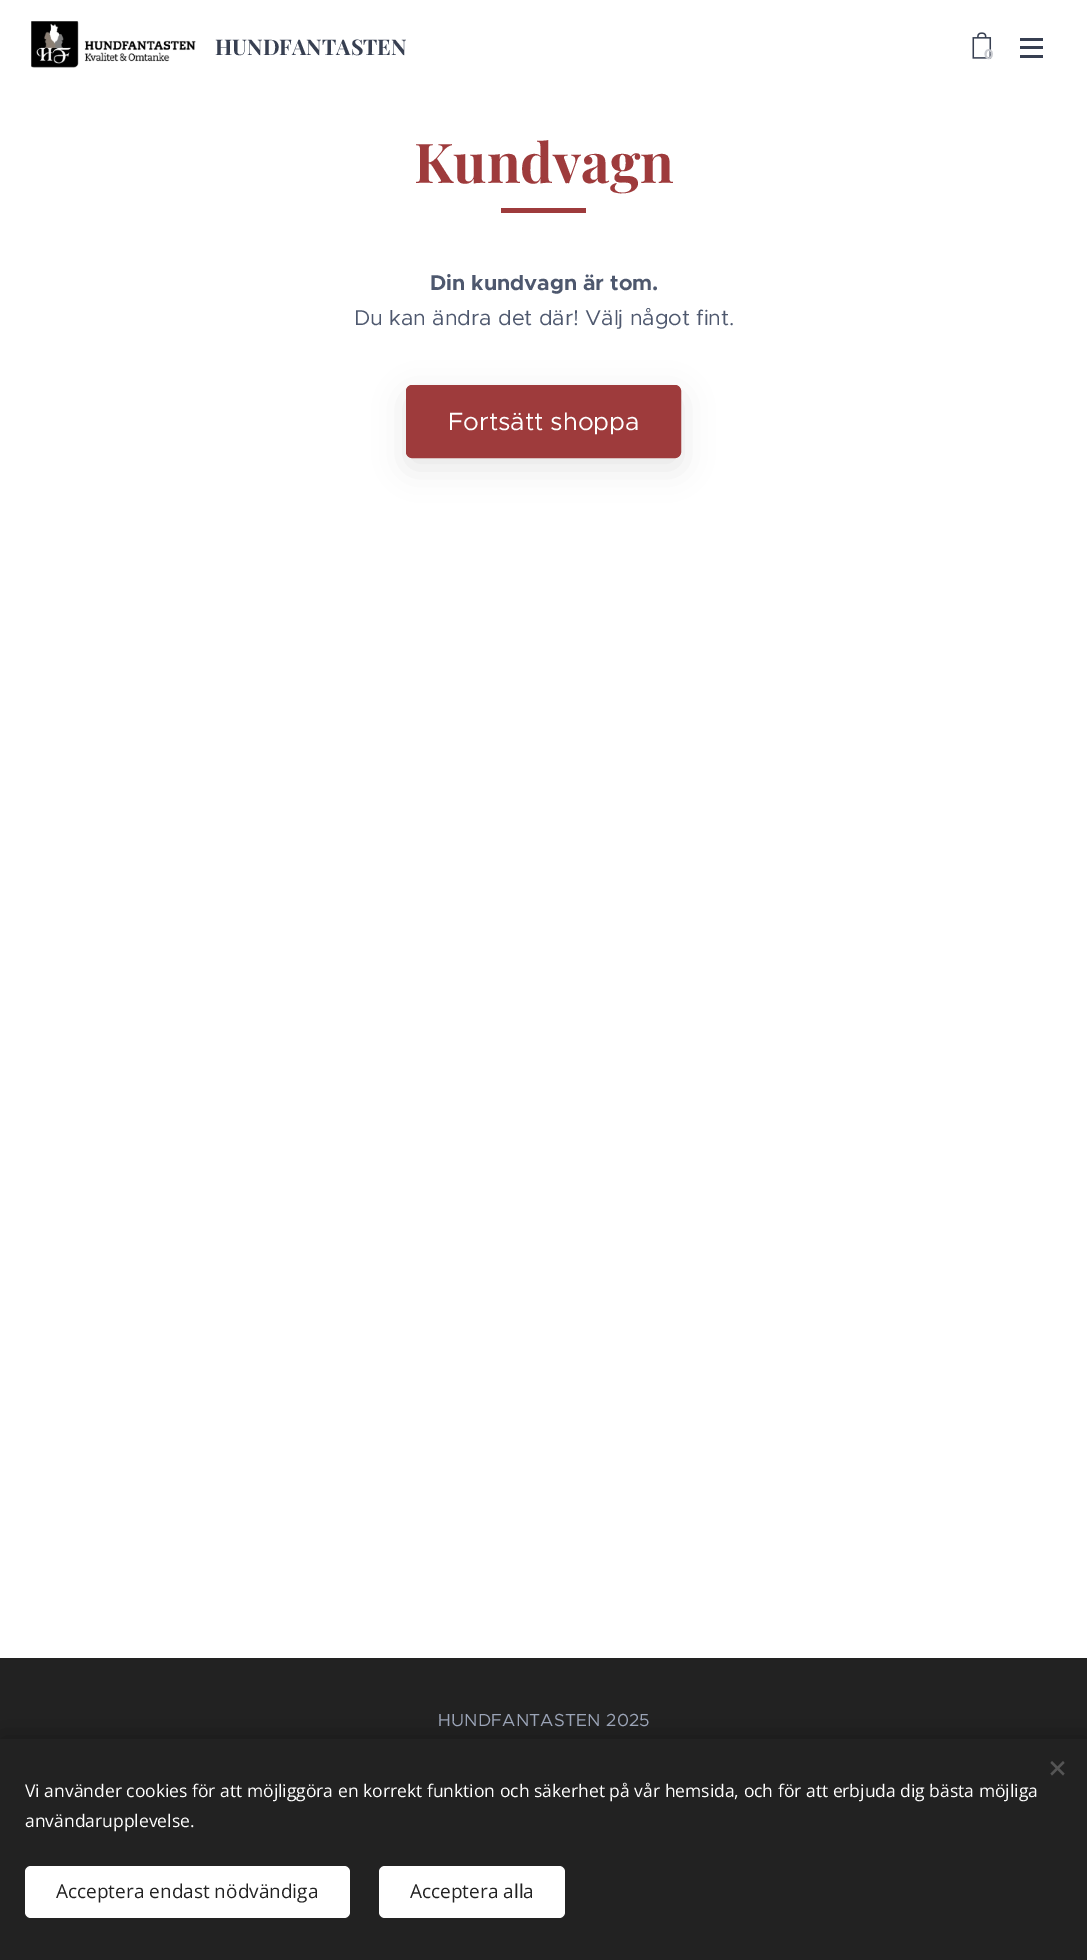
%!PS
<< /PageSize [1087 1960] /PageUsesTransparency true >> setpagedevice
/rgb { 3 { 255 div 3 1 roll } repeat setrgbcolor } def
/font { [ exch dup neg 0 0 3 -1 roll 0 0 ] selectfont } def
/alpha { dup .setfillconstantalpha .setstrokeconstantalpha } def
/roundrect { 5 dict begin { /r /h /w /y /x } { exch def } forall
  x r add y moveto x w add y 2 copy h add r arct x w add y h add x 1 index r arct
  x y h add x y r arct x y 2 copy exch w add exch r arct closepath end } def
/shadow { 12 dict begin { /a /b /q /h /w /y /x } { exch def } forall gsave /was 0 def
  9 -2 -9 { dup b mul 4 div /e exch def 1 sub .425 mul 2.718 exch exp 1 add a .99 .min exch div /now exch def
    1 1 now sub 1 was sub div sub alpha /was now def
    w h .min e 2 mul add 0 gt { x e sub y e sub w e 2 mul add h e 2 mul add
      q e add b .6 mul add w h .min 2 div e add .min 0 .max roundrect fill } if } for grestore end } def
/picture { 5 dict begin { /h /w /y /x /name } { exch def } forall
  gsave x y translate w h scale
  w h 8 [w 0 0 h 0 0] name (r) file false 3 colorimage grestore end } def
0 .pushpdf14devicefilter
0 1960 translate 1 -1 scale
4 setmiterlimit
255 255 255 rgb
0 0 1087 1960 rectfill
(img/1.rgb) 31 21 165 47 picture
(img/2.rgb) 972 32 20 27 picture
[
  [1020 46 23 3 55 63 81]
  [1020 38 23 3 55 63 81]
  [1020 55 23 3 55 63 81]
  [501 208 85 5 158 59 60]
] { aload pop rgb rectfill } forall
0 0 0 rgb
406 395 275 73 6 15.5 0.1 shadow
158 59 60 rgb
406.5 385.5 274 72 5.5 roundrect gsave fill grestore
stroke
34 34 34 rgb
0 1658 1087 81 rectfill
0 0 0 rgb
0 1739 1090 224 0 15.5 0.33 shadow
34 34 34 rgb
0 1739 1087 221 rectfill
85 85 85 rgb
1050.5 1773.5 moveto 1063 1761 lineto 1064.5 1763 lineto 1052 1775.5 lineto closepath fill
1052 1761 moveto 1064.5 1773.5 lineto 1063 1775.5 lineto 1050.5 1763 lineto closepath fill
255 255 255 rgb
25 1866 325 52 6 roundrect fill
379 1866 186 52 6 roundrect fill
/PlayfairDisplay-Bold 21.5 font
55 63 81 rgb
215 55 moveto (HUNDFANTASTEN) show
/Montserrat-Bold 14 font
201 203 208 rgb
984 59 moveto (0) show
/PlayfairDisplay-Bold 55 font
158 59 60 rgb
414 183 moveto (Kundvagn) show
/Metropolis-Bold 21.5 font
78 88 110 rgb
430 290 moveto (Din kundvagn är tom.) show
/Metropolis-Regular 21.5 font
354 325 moveto (Du kan ändra det där! Välj något fint.) show
/Metropolis-Regular 25 font
255 255 255 rgb
448 430 moveto (Fortsätt shoppa) show
/Metropolis-Regular 17.5 font
155 164 183 rgb
438 1726 moveto 0.2 0 (HUNDFANTASTEN 2025) ashow
/OpenSans-Regular 17.5 font
255 255 255 rgb
25 1797 moveto (Vi använder cookies för att möjliggöra en korrekt funktion och säkerhet på vår hemsida, och för att erbjuda dig bästa möjliga) show
25 1827 moveto (användarupplevelse.) show
/OpenSans-Regular 19 font
34 34 34 rgb
56 1898 moveto (Acceptera endast nödvändiga) show
410 1898 moveto (Acceptera alla) show
.poppdf14devicefilter showpage
